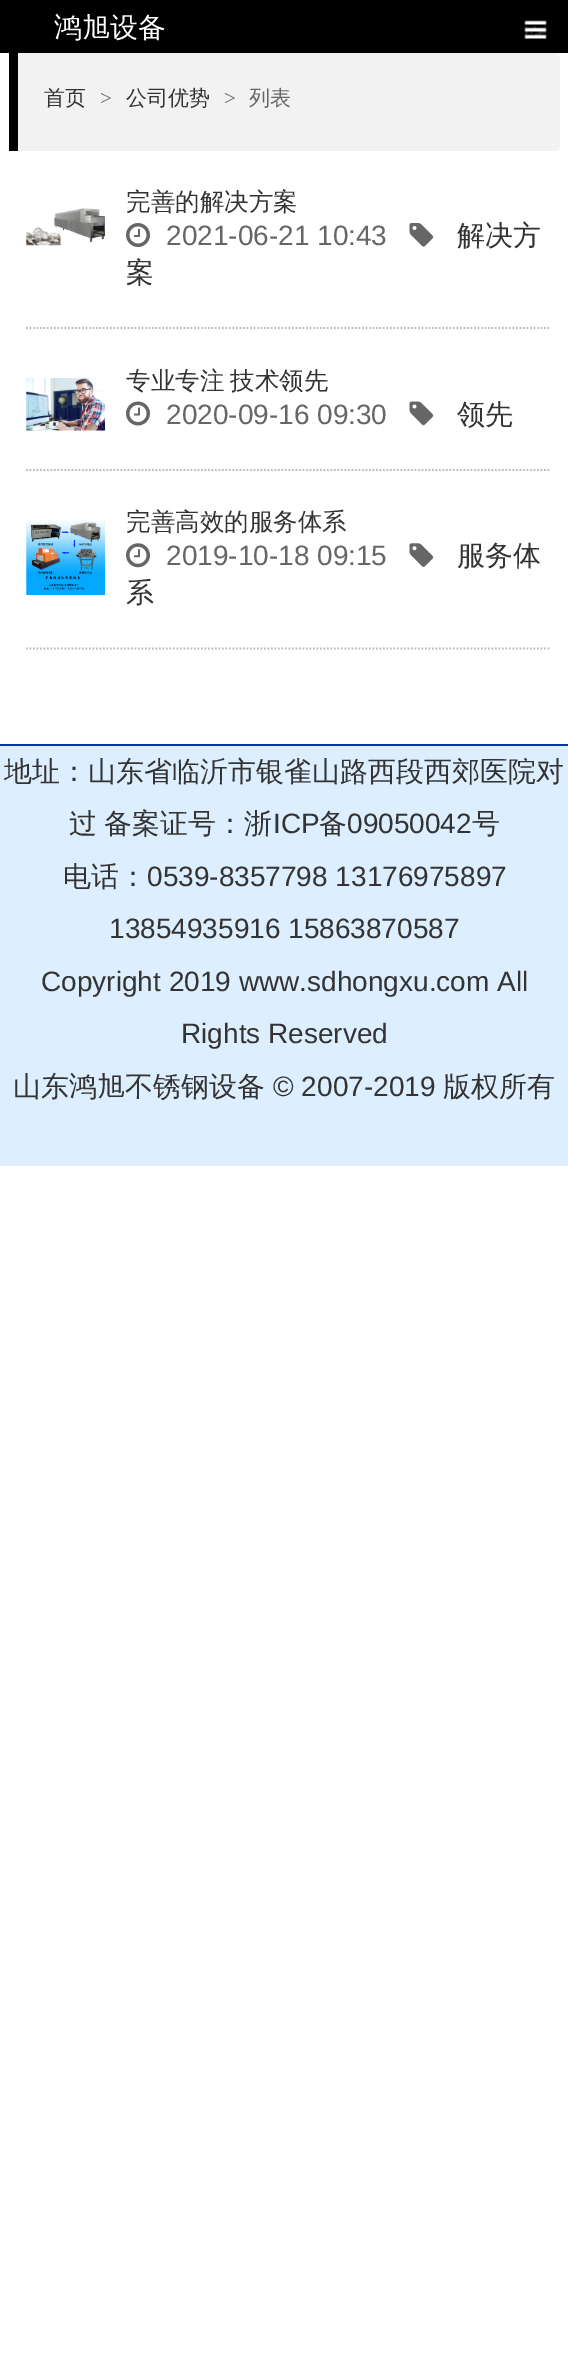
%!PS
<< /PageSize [568 2367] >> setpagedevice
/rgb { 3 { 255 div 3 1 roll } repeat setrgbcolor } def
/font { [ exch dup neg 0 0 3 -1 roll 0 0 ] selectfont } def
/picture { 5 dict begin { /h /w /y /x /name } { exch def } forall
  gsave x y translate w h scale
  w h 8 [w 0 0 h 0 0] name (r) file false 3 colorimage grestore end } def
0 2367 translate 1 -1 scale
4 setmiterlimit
255 255 255 rgb
0 0 568 2367 rectfill
0 0 0 rgb
0 0 568 53 rectfill
(img/1.rgb) 524 20 23 19 picture
242 242 242 rgb
9 53 moveto 556 53 lineto 558 53 560 55 560 57 curveto 560 147 lineto 560 149 558 151 556 151 curveto 9 151 lineto closepath fill
0 0 0 rgb
9 53 9 98 rectfill
(img/2.rgb) 26 208 79 38 picture
(img/3.rgb) 409 223 25 24 picture
(img/4.rgb) 126 223 24 24 picture
187 187 187 rgb
1.8 setlinewidth
[1.75 1.75] 0 setdash
26 328 moveto 551 328 lineto stroke
(img/5.rgb) 26 378 79 53 picture
(img/6.rgb) 126 401 24 25 picture
(img/7.rgb) 409 401 25 25 picture
26 470 moveto 551 470 lineto stroke
(img/8.rgb) 26 520 79 75 picture
(img/9.rgb) 409 543 25 24 picture
(img/10.rgb) 126 543 24 25 picture
26 648.5 moveto 551 648.5 lineto stroke
221 238 255 rgb
0 746 568 420 rectfill
3 55 171 rgb
0 744 568 2 rectfill
/WenQuanYiZenHei-Medium 28 font
255 255 255 rgb
54 37 moveto (鸿旭设备) show
/WenQuanYiZenHei-Medium 21 font
51 51 51 rgb
44 105 moveto (首页) show
/LiberationSerif-Regular 21 font
102 102 102 rgb
100 105 moveto (>) show
/WenQuanYiZenHei-Medium 21 font
51 51 51 rgb
126 105 moveto (公司优势) show
/LiberationSerif-Regular 21 font
102 102 102 rgb
224 105 moveto (>) show
/WenQuanYiZenHei-Medium 21 font
249 105 moveto (列表) show
/WenQuanYiZenHei-Medium 24.5 font
51 51 51 rgb
126 210 moveto (完善的解决方案) show
/WenQuanYiZenHei-Medium 28 font
457 245 moveto (解决方) show
126 282 moveto (案) show
/LiberationSans-Regular 28 font
102 102 102 rgb
166 245 moveto (2021-06-21 10:43) show
/WenQuanYiZenHei-Medium 24.5 font
51 51 51 rgb
126 389 moveto -1 0 32 (专业专注 技术领先) widthshow
/LiberationSans-Regular 28 font
102 102 102 rgb
166 424 moveto (2020-09-16 09:30) show
/WenQuanYiZenHei-Medium 28 font
51 51 51 rgb
457 424 moveto (领先) show
/WenQuanYiZenHei-Medium 24.5 font
126 530 moveto (完善高效的服务体系) show
/WenQuanYiZenHei-Medium 28 font
457 565 moveto (服务体) show
126 602 moveto (系) show
/LiberationSans-Regular 28 font
102 102 102 rgb
166 565 moveto (2019-10-18 09:15) show
/WenQuanYiZenHei-Medium 28 font
51 51 51 rgb
4 781 moveto (地址：山东省临沂市银雀山路西段西郊医院对) show
69 833 moveto -1 0 32 (过 备案证号：浙) widthshow
/LiberationSans-Regular 28 font
273 833 moveto (ICP) show
/WenQuanYiZenHei-Medium 28 font
319 833 moveto (备) show
/LiberationSans-Regular 28 font
347 833 moveto (09050042) show
/WenQuanYiZenHei-Medium 28 font
472 833 moveto (号) show
63 886 moveto (电话：) show
/LiberationSans-Regular 28 font
[
  [(0539-8357798 13176975897) 147 886]
  [(13854935916 15863870587) 109 938]
  [(Copyright 2019 www.sdhongxu.com All) 41 991]
  [(Rights Reserved) 181 1043]
] { aload pop moveto show } forall
/WenQuanYiZenHei-Medium 28 font
13 1096 moveto (山东鸿旭不锈钢设备) show
/LiberationSans-Regular 28 font
273 1096 moveto (© 2007-2019) show
/WenQuanYiZenHei-Medium 28 font
443 1096 moveto (版权所有) show
showpage
